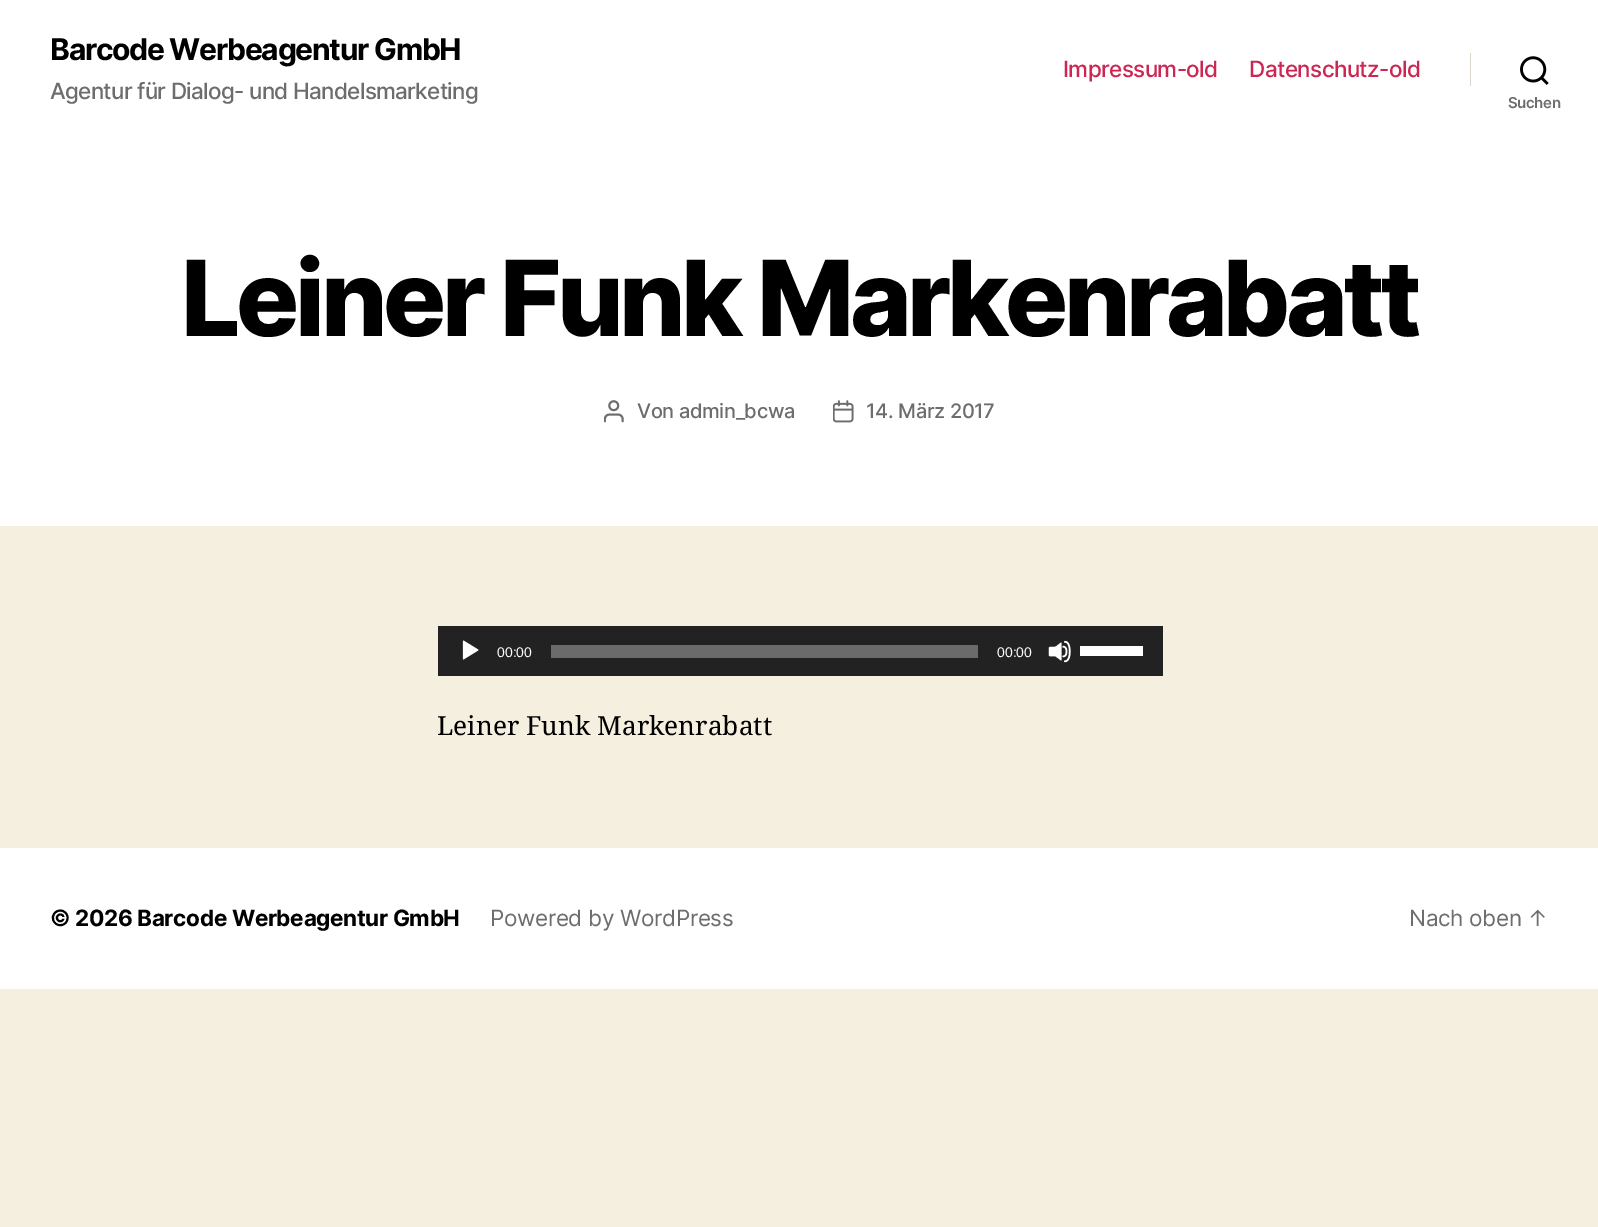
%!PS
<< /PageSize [1598 1227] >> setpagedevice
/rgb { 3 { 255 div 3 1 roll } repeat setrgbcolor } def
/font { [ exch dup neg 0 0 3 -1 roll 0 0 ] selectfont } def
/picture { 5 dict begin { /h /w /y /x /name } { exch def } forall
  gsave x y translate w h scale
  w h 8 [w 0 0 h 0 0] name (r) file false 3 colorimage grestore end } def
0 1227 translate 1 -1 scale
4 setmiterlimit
245 239 224 rgb
0 0 1598 1227 rectfill
255 255 255 rgb
0 0 1598 526 rectfill
220 215 202 rgb
1470 53 1 33 rectfill
(img/1.rgb) 1520 56 29 29 picture
(img/2.rgb) 604 400 20 23 picture
(img/3.rgb) 833 400 21 23 picture
34 34 34 rgb
438 626 725 50 rectfill
(img/4.rgb) 462 640 17 20 picture
107 107 107 rgb
551 645 427 13 rectfill
(img/5.rgb) 1048 640 23 23 picture
255 255 255 rgb
1080 646 63 10 rectfill
0 848 1598 141 rectfill
/Inter-Bold 30 font
0 0 0 rgb
50 60 moveto -1.25 0 (Barcode Werbeagentur GmbH) ashow
/Inter-Medium 22.5 font
109 109 109 rgb
50 99 moveto -0.7 0 (Agentur für Dialog- und Handelsmarketing) ashow
205 38 83 rgb
1063 77 moveto -0.6 0 (Impressum-old) ashow
1249 77 moveto -0.6 0 (Datenschutz-old) ashow
/Inter-SemiBold 15 font
109 109 109 rgb
1508 108 moveto -0.35 0 (Suchen) ashow
/Inter-ExtraBold 105 font
0 0 0 rgb
181 336 moveto -4.4 0 (Leiner Funk Markenrabatt) ashow
/Inter-Medium 20 font
109 109 109 rgb
637 418 moveto -0.35 0 (Von admin_bcwa) ashow
866 418 moveto -0.35 0 (14. März 2017) ashow
/LiberationSans-Regular 14 font
255 255 255 rgb
497 657 moveto (00:00) show
997 657 moveto (00:00) show
/NotoSerif-Regular 26.25 font
0 0 0 rgb
437 735 moveto (Leiner Funk Markenrabatt) show
/Inter-Bold 22.5 font
50 926 moveto -0.35 0 (© 2026 Barcode Werbeagentur GmbH) ashow
/Inter-Regular 22.5 font
109 109 109 rgb
490 926 moveto -0.35 0 (Powered by WordPress) ashow
1409 926 moveto -0.35 0 (Nach oben ↑) ashow
showpage
